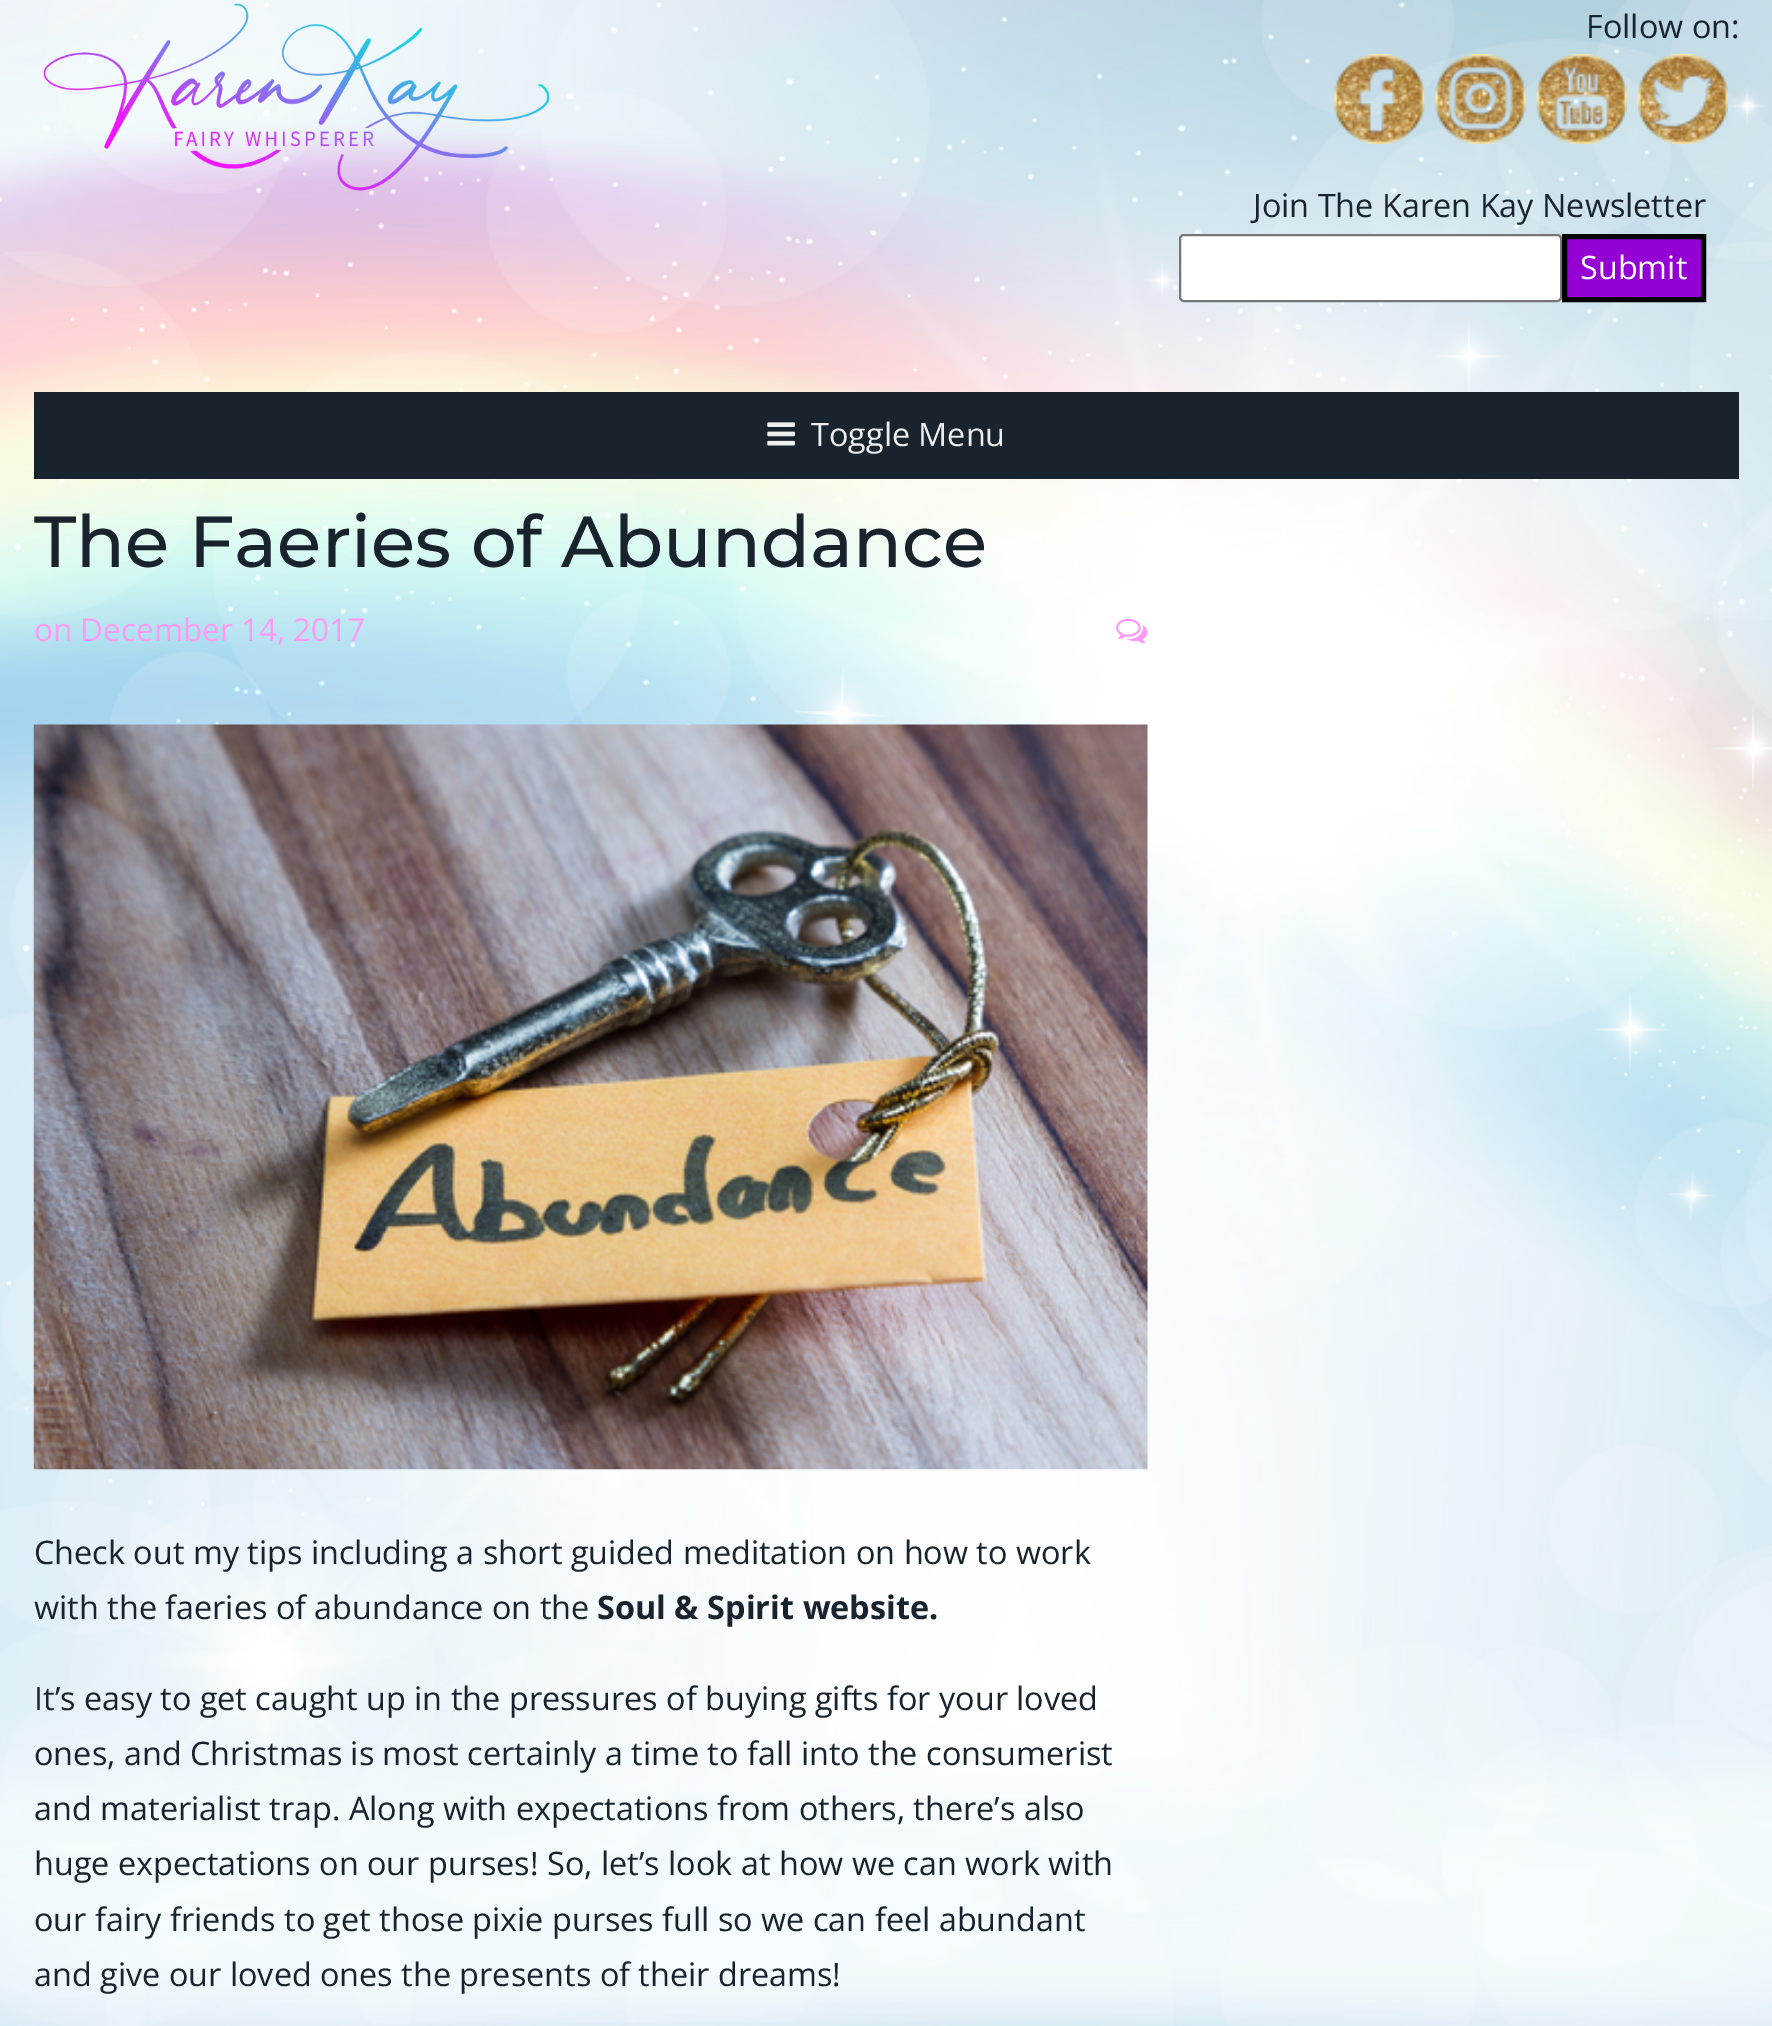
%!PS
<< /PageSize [1772 2026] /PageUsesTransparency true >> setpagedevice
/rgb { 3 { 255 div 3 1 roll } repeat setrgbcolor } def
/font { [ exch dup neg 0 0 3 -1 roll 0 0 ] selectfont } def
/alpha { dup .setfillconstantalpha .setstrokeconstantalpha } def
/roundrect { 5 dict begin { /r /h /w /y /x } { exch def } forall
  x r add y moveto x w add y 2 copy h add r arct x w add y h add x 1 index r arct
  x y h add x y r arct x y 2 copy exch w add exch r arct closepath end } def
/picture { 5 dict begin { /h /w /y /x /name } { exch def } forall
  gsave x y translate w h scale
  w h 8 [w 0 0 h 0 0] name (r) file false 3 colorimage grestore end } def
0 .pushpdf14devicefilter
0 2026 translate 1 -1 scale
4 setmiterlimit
255 255 255 rgb
0 0 1772 2026 rectfill
(img/1.rgb) 0 0 1772 2026 picture
0.5 alpha
0 0 1772 392 rectfill
1 alpha
(img/2.rgb) 43 3 507 188 picture
(img/3.rgb) 1334 54 91 90 picture
(img/4.rgb) 1435 54 91 90 picture
(img/5.rgb) 1536 54 91 90 picture
(img/6.rgb) 1638 54 90 90 picture
1180 235 381 66 4 roundrect gsave fill grestore
118 118 118 rgb
2 setlinewidth
stroke
148 0 211 rgb
1564.5 236.5 moveto 1703.5 236.5 lineto 1703.5 299.5 lineto 1564.5 299.5 lineto closepath gsave fill grestore
0 0 0 rgb
5 setlinewidth
stroke
0.5 alpha
255 255 255 rgb
0 392 1772 87 rectfill
1 alpha
25 35 45 rgb
34 392 1705 87 rectfill
(img/7.rgb) 767 422 28 24 picture
0.5 alpha
255 255 255 rgb
0 479 1772 1547 rectfill
1 alpha
(img/8.rgb) 1116 618 32 26 picture
(img/9.rgb) 33 724 1115 746 picture
/OpenSans-Regular 32.4 font
25 35 45 rgb
1586 38 moveto (Follow on:) show
1253 217 moveto (Join The Karen Kay Newsletter) show
255 255 255 rgb
1580 279 moveto (Submit) show
238 238 238 rgb
811 446 moveto (Toggle Menu) show
/Montserrat-Medium 72 font
25 35 45 rgb
34 567 moveto (The Faeries of Abundance) show
/OpenSans-Regular 31.5 font
255 154 244 rgb
34 641 moveto (on December 14, 2017) show
/OpenSans-Regular 32.4 font
25 35 45 rgb
34 1564 moveto (Check out my tips including a short guided meditation on how to work) show
34 1619 moveto (with the faeries of abundance on the) show
/OpenSans-Bold 32.4 font
597 1619 moveto (Soul & Spirit website.) show
/OpenSans-Regular 32.4 font
[
  [(It’s easy to get caught up in the pressures of buying gifts for your loved) 34 1710]
  [(ones, and Christmas is most certainly a time to fall into the consumerist) 34 1765]
  [(and materialist trap. Along with expectations from others, there’s also) 34 1820]
  [(huge expectations on our purses! So, let’s look at how we can work with) 34 1875]
  [(our fairy friends to get those pixie purses full so we can feel abundant) 34 1931]
  [(and give our loved ones the presents of their dreams!) 34 1986]
] { aload pop moveto show } forall
.poppdf14devicefilter showpage
